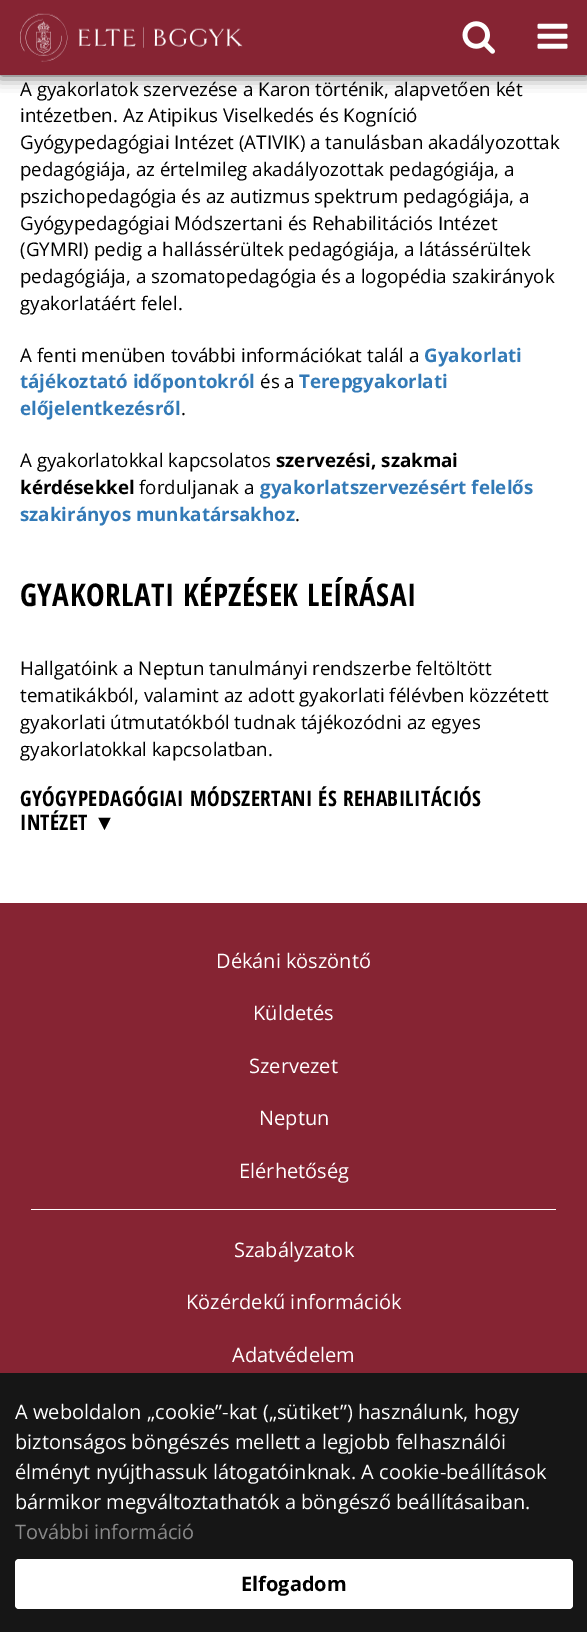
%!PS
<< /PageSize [587 1632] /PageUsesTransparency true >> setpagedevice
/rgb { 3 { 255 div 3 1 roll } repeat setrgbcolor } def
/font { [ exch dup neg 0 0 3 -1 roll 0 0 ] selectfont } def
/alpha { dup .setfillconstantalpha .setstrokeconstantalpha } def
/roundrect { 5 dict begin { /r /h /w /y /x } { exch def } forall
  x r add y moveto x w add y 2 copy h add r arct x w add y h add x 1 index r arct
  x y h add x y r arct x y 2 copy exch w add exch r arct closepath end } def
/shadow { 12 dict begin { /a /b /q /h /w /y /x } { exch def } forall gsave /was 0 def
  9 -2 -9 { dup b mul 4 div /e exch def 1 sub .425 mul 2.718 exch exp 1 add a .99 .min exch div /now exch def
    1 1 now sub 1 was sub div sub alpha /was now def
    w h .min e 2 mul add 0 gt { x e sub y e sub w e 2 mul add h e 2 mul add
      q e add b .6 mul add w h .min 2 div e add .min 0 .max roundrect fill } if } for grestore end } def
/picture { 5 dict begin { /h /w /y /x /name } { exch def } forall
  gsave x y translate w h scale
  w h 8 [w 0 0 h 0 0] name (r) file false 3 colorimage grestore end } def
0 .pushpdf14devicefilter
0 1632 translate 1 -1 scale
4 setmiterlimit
255 255 255 rgb
0 0 587 1632 rectfill
0 0 0 rgb
0 0 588 75 0 8 0.75 shadow
134 36 51 rgb
0 0 587 75 rectfill
(img/1.rgb) 20 13 223 49 picture
(img/2.rgb) 462 21 33 33 picture
(img/3.rgb) 537 23 31 26 picture
[
  [0 903 587 470 134 36 51]
  [31 1209 525 1 255 255 255]
  [0 1373 587 259 22 22 22]
] { aload pop rgb rectfill } forall
255 255 255 rgb
15 1559 558 50 4 roundrect fill
/OpenSans-Regular 18.75 font
0 0 0 rgb
[
  [(A gyakorlatok szervezése a Karon történik, alapvetően két) 20 96]
  [(intézetben. Az Atipikus Viselkedés és Kogníció) 20 122]
  [(Gyógypedagógiai Intézet \(ATIVIK\) a tanulásban akadályozottak) 20 149]
  [(pedagógiája, az értelmileg akadályozottak pedagógiája, a) 20 176]
  [(pszichopedagógia és az autizmus spektrum pedagógiája, a) 20 203]
  [(Gyógypedagógiai Módszertani és Rehabilitációs Intézet) 20 230]
  [(\(GYMRI\) pedig a hallássérültek pedagógiája, a látássérültek) 20 256]
  [(pedagógiája, a szomatopedagógia és a logopédia szakirányok) 20 283]
  [(gyakorlatáért felel.) 20 310]
  [(A fenti menüben további információkat talál a) 20 362]
] { aload pop moveto show } forall
/OpenSans-Bold 18.75 font
51 122 183 rgb
424 362 moveto (Gyakorlati) show
20 388 moveto (tájékoztató időpontokról) show
/OpenSans-Regular 18.75 font
0 0 0 rgb
260 388 moveto (és a) show
/OpenSans-Bold 18.75 font
51 122 183 rgb
299 388 moveto (Terepgyakorlati) show
20 415 moveto (előjelentkezésről) show
/OpenSans-Regular 18.75 font
0 0 0 rgb
181 415 moveto (.) show
20 467 moveto (A gyakorlatokkal kapcsolatos) show
/OpenSans-Bold 18.75 font
276 467 moveto (szervezési, szakmai) show
20 494 moveto (kérdésekkel) show
/OpenSans-Regular 18.75 font
139 494 moveto (forduljanak a) show
/OpenSans-Bold 18.75 font
51 122 183 rgb
260 494 moveto (gyakorlatszervezésért felelős) show
20 521 moveto (szakirányos munkatársakhoz) show
/OpenSans-Regular 18.75 font
0 0 0 rgb
295 521 moveto (.) show
/OpenSansCondensed-Bold 31.25 font
20 606 moveto 0.4 0 (GYAKORLATI KÉPZÉSEK LEÍRÁSAI) ashow
/OpenSans-Regular 18.75 font
[
  [(Hallgatóink a Neptun tanulmányi rendszerbe feltöltött) 20 675]
  [(tematikákból, valamint az adott gyakorlati félévben közzétett) 20 702]
  [(gyakorlati útmutatókból tudnak tájékozódni az egyes) 20 729]
  [(gyakorlatokkal kapcsolatban.) 20 756]
] { aload pop moveto show } forall
/OpenSansCondensed-Bold 21.25 font
20 806 moveto 0.4 0 (GYÓGYPEDAGÓGIAI MÓDSZERTANI ÉS REHABILITÁCIÓS) ashow
20 830 moveto 0.4 0 (INTÉZET) ashow
/LiberationSans-Bold 21.25 font
94 830 moveto 0.4 0 (▼) ashow
/OpenSans-Regular 20 font
255 255 255 rgb
[
  [(Dékáni köszöntő) 216 968]
  [(Küldetés) 253 1020]
  [(Szervezet) 249 1073]
  [(Neptun) 259 1125]
  [(Elérhetőség) 239 1178]
  [(Szabályzatok) 234 1257]
  [(Közérdekű információk) 186 1309]
  [(Adatvédelem) 232 1362]
  [(A weboldalon „cookie”-kat \(„sütiket”\) használunk, hogy) 15 1419]
  [(biztonságos böngészés mellett a legjobb felhasználói) 15 1449]
  [(élményt nyújthassuk látogatóinknak. A cookie-beállítások) 15 1479]
  [(bármikor megváltoztathatók a böngésző beállításaiban.) 15 1509]
] { aload pop moveto show } forall
138 138 138 rgb
15 1539 moveto (További információ) show
/OpenSans-Bold 20 font
0 0 0 rgb
241 1591 moveto (Elfogadom) show
.poppdf14devicefilter showpage
